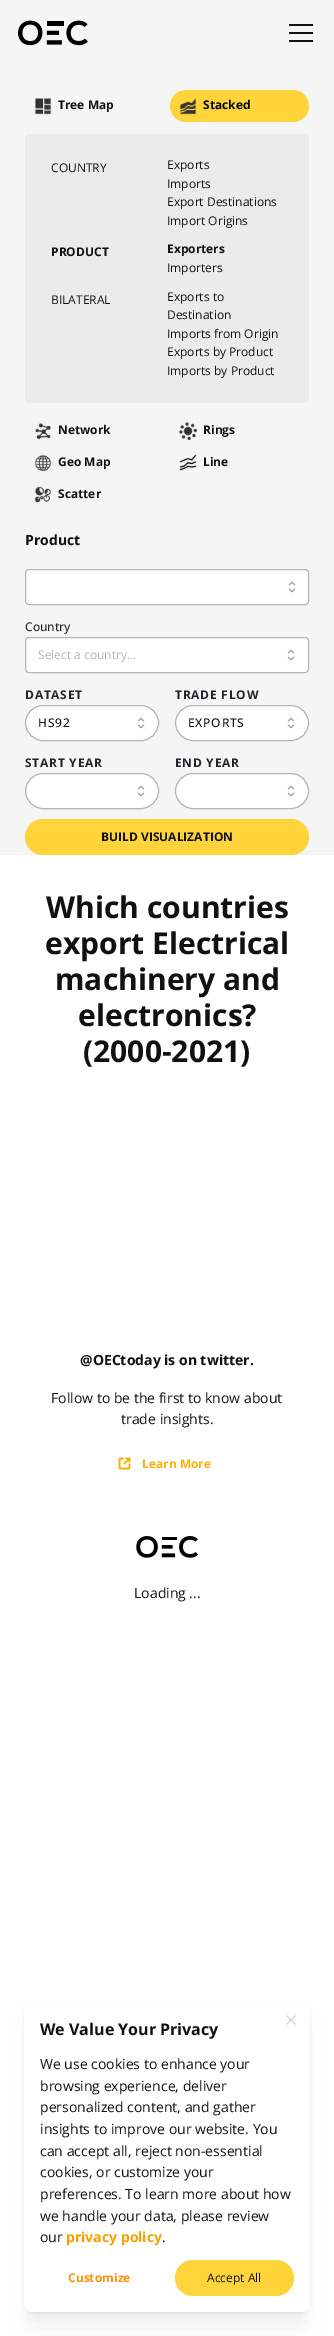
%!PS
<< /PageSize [334 2336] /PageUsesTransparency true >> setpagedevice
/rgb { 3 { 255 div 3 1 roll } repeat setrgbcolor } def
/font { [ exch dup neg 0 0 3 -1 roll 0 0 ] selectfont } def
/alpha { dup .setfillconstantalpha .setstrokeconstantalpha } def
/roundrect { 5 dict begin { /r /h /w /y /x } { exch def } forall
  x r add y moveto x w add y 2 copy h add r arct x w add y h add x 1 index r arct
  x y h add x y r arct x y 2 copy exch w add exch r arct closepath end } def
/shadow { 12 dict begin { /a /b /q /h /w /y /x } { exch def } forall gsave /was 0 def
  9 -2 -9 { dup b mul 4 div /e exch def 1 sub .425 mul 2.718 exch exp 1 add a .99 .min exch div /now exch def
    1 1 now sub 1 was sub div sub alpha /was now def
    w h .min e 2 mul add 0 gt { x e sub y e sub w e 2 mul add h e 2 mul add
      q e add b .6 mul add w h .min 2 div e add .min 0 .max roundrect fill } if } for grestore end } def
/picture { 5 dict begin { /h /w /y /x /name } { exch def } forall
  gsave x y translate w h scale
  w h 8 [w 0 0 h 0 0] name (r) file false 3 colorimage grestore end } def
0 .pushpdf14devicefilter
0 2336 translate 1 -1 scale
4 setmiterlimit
255 255 255 rgb
0 0 334 2336 rectfill
245 245 245 rgb
0 0 334 855 rectfill
(img/1.rgb) 18 20 70 26 picture
[
  [289 32 24 2 16 17 18]
  [289 24 24 2 16 17 18]
  [289 40 24 2 16 17 18]
] { aload pop rgb rectfill } forall
(img/2.rgb) 34 98 18 17 picture
255 212 59 rgb
170 90 139 32 16 roundrect fill
(img/3.rgb) 179 98 18 17 picture
235 235 235 rgb
25 134 284 269 4 roundrect fill
(img/4.rgb) 35 423 16 17 picture
(img/5.rgb) 179 422 18 19 picture
(img/6.rgb) 34 455 18 17 picture
(img/7.rgb) 179 454 18 17 picture
(img/8.rgb) 34 486 18 17 picture
255 255 255 rgb
25.5 569.5 283 35 3.5 roundrect gsave fill grestore
180 180 180 rgb
stroke
(img/9.rgb) 288 581 8 12 picture
255 255 255 rgb
25.5 637.5 283 35 3.5 roundrect gsave fill grestore
180 180 180 rgb
stroke
(img/9.rgb) 287 649 8 12 picture
255 255 255 rgb
25.5 705.5 133 35 17.5 roundrect gsave fill grestore
180 180 180 rgb
stroke
(img/9.rgb) 137 717 8 12 picture
255 255 255 rgb
175.5 705.5 133 35 17.5 roundrect gsave fill grestore
180 180 180 rgb
stroke
(img/9.rgb) 287 717 8 12 picture
255 255 255 rgb
25.5 773.5 133 35 17.5 roundrect gsave fill grestore
180 180 180 rgb
stroke
(img/9.rgb) 137 785 8 12 picture
255 255 255 rgb
175.5 773.5 133 35 17.5 roundrect gsave fill grestore
180 180 180 rgb
stroke
(img/9.rgb) 287 785 8 12 picture
255 212 59 rgb
25 819 284 36 18 roundrect fill
(img/10.rgb) 118 1457 13 13 picture
(img/11.rgb) 136 1536 63 22 picture
0 0 0 rgb
29 2016 276 301 3 5 0.04 shadow
29 2026 276 301 3 12.5 0.05 shadow
24 2002 286 311 8 1.5 0.05 shadow
255 255 255 rgb
24 2001 286 311 8 roundrect fill
(img/12.rgb) 286 2015 10 10 picture
255 212 59 rgb
175 2260 119 36 18 roundrect fill
/OpenSans-Bold 12 font
16 17 18 rgb
58 109 moveto (Tree Map) show
0 0 0 rgb
203 109 moveto (Stacked) show
/OpenSans-Regular 12 font
16 17 18 rgb
[
  [(COUNTRY) 51 172]
  [(Exports) 167 169]
  [(Imports) 167 188]
  [(Export Destinations) 167 206]
  [(Import Origins) 167 225]
] { aload pop moveto show } forall
/OpenSans-Bold 12 font
51 256 moveto (PRODUCT) show
167 253 moveto (Exporters) show
/OpenSans-Regular 12 font
[
  [(Importers) 167 272]
  [(BILATERAL) 51 304]
  [(Exports to) 167 301]
  [(Destination) 167 319]
  [(Imports from Origin) 167 338]
  [(Exports by Product) 167 356]
  [(Imports by Product) 167 375]
] { aload pop moveto show } forall
/OpenSans-Bold 12 font
[
  [(Network) 58 434]
  [(Rings) 203 434]
  [(Geo Map) 58 466]
  [(Line) 203 466]
  [(Scatter) 58 498]
] { aload pop moveto show } forall
/OpenSans-Bold 14 font
25 545 moveto (Product) show
/OpenSans-Medium 12 font
33 37 41 rgb
25 631 moveto (Country) show
/OpenSans-Regular 12 font
173 181 189 rgb
38 659 moveto (Select a country...) show
/OpenSans-Bold 12 font
33 37 41 rgb
25 699 moveto 0.75 0 (DATASET) ashow
/OpenSans-Medium 12 font
16 17 18 rgb
38 727 moveto 0.75 0 (HS92) ashow
/OpenSans-Bold 12 font
33 37 41 rgb
175 699 moveto 0.75 0 (TRADE FLOW) ashow
/OpenSans-Medium 12 font
16 17 18 rgb
188 727 moveto 0.75 0 (EXPORTS) ashow
/OpenSans-Bold 12 font
33 37 41 rgb
25 767 moveto 0.75 0 (START YEAR) ashow
175 767 moveto 0.75 0 (END YEAR) ashow
16 17 18 rgb
101 841 moveto (BUILD VISUALIZATION) show
/OpenSans-Bold 30 font
[
  [(Which countries) 46 918]
  [(export Electrical) 45 954]
  [(machinery and) 55 990]
  [(electronics?) 78 1026]
  [(\(2000-2021\)) 83 1062]
] { aload pop moveto show } forall
/OpenSans-Bold 14 font
80 1365 moveto (@OECtoday is on twitter.) show
/OpenSans-Regular 14 font
51 1403 moveto (Follow to be the first to know about) show
121 1424 moveto (trade insights.) show
/OpenSans-Bold 12 font
250 176 5 rgb
142 1468 moveto (Learn More) show
/OpenSans-Regular 14 font
16 17 18 rgb
134 1598 moveto (Loading ...) show
/OpenSans-Bold 16 font
40 2035 moveto (We Value Your Privacy) show
/OpenSans-Regular 14 font
[
  [(We use cookies to enhance your) 40 2069]
  [(browsing experience, deliver) 40 2091]
  [(personalized content, and gather) 40 2112]
  [(insights to improve our website. You) 40 2134]
  [(can accept all, reject non-essential) 40 2156]
  [(cookies, or customize your) 40 2177]
  [(preferences. To learn more about how) 40 2199]
  [(we handle your data, please review) 40 2221]
  [(our) 40 2242]
] { aload pop moveto show } forall
/OpenSans-Bold 14 font
245 159 0 rgb
66 2242 moveto (privacy policy) show
/OpenSans-Regular 14 font
16 17 18 rgb
162 2242 moveto (.) show
/OpenSans-Bold 12 font
255 143 13 rgb
68 2282 moveto (Customize) show
/OpenSans-Regular 12 font
16 17 18 rgb
207 2282 moveto (Accept All) show
.poppdf14devicefilter showpage
